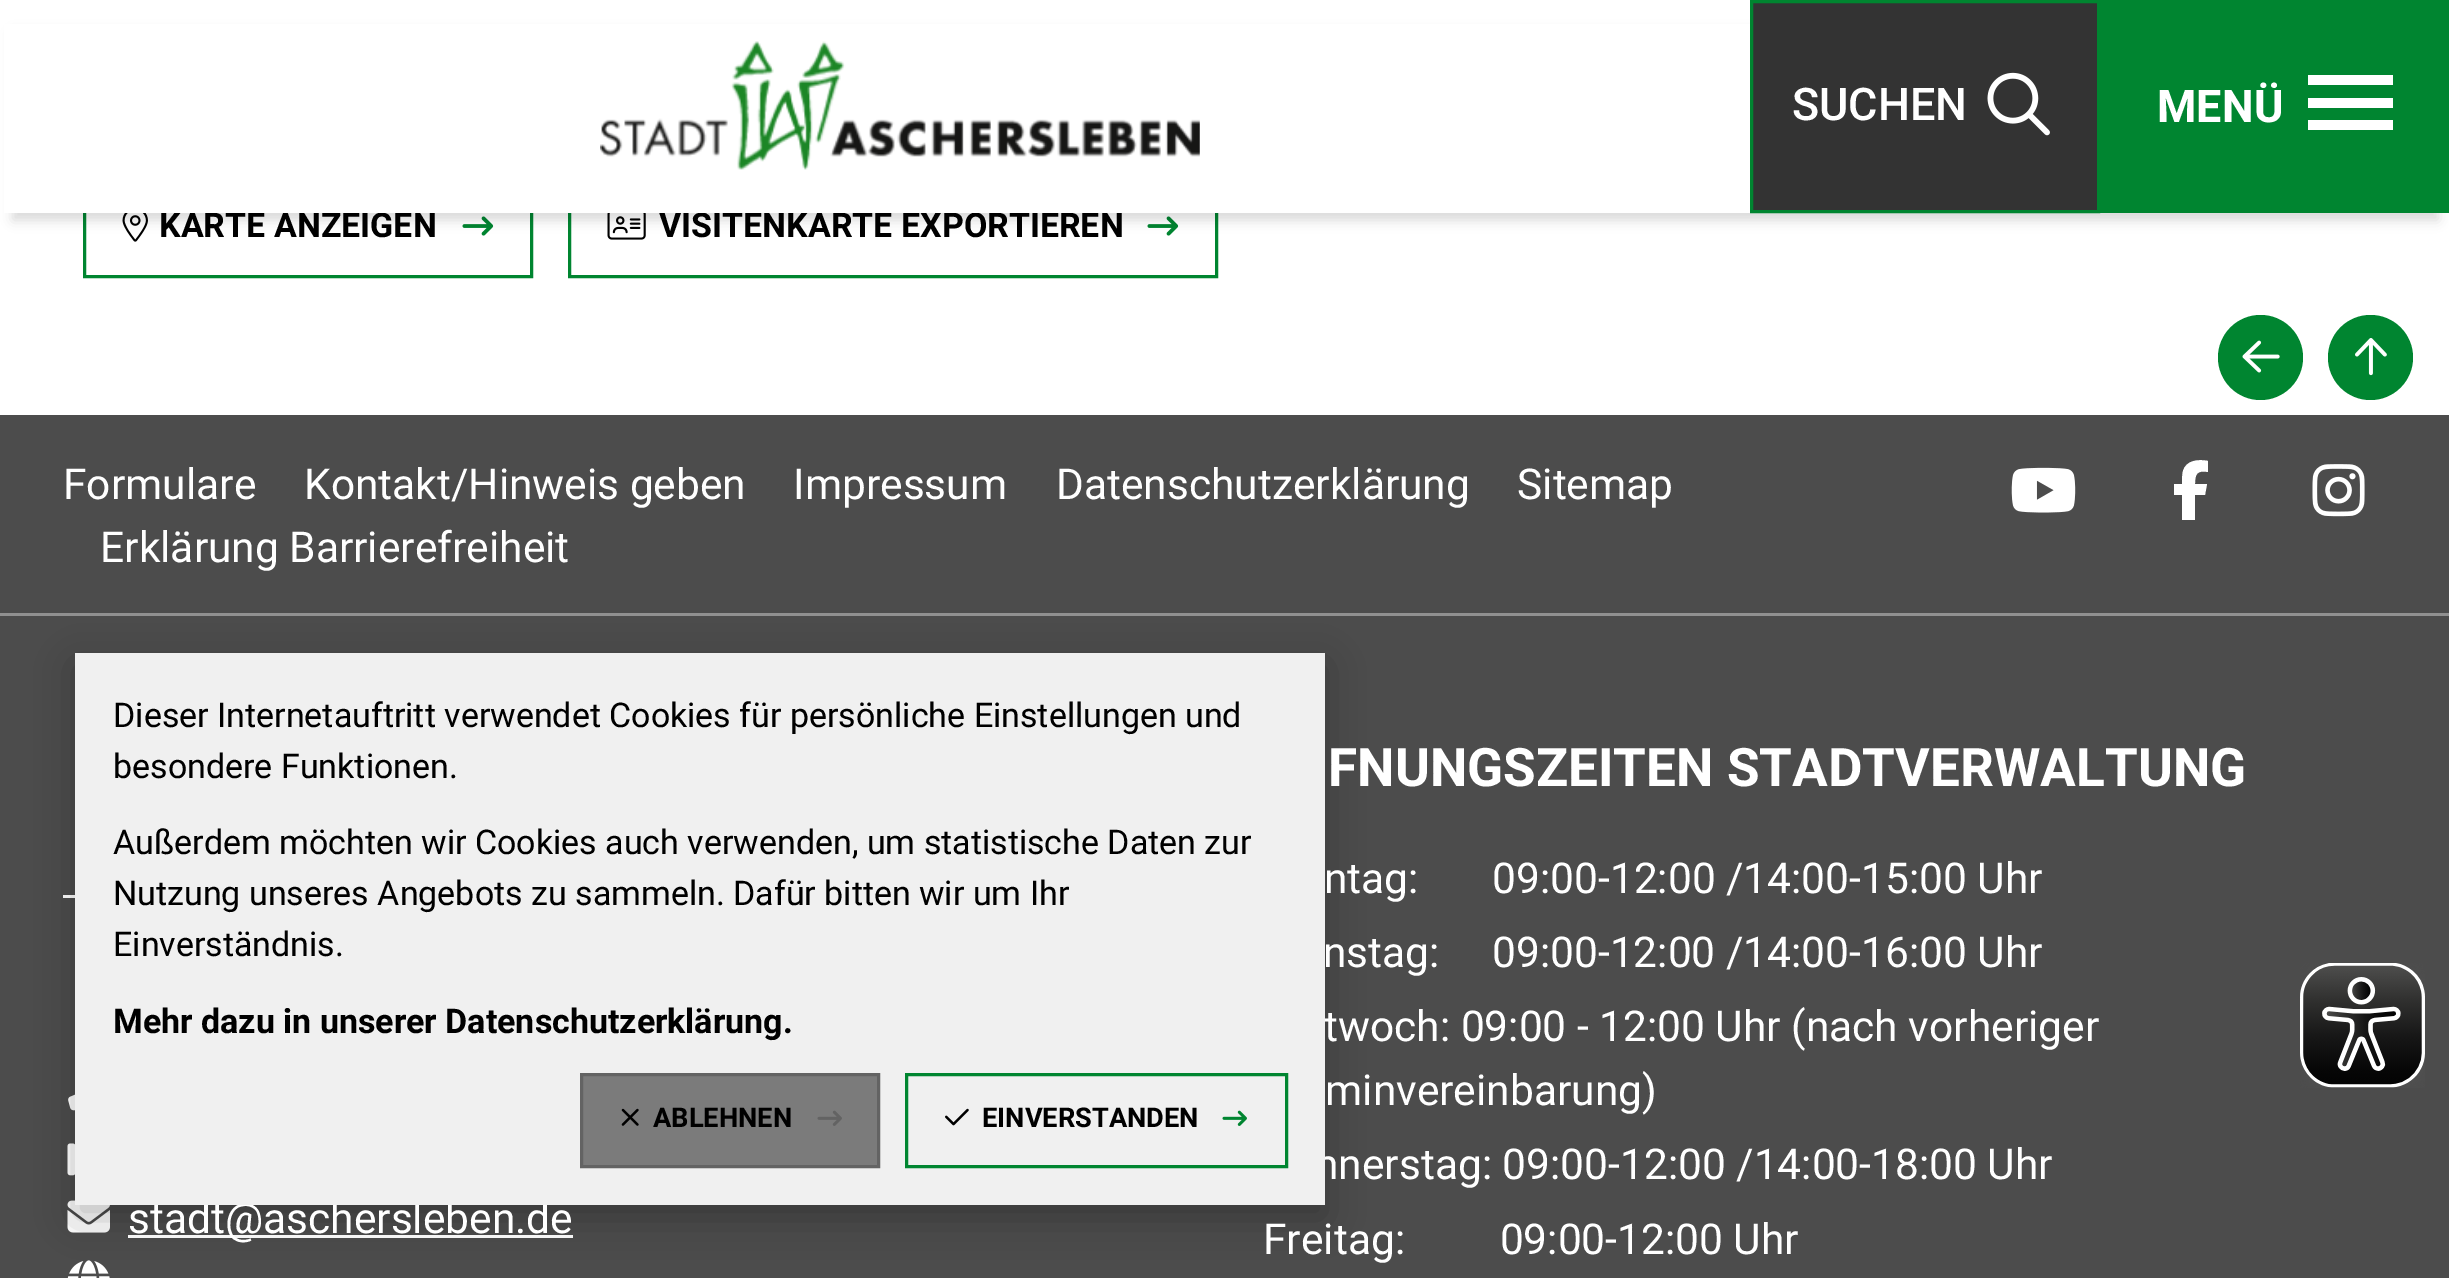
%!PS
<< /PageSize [2449 1278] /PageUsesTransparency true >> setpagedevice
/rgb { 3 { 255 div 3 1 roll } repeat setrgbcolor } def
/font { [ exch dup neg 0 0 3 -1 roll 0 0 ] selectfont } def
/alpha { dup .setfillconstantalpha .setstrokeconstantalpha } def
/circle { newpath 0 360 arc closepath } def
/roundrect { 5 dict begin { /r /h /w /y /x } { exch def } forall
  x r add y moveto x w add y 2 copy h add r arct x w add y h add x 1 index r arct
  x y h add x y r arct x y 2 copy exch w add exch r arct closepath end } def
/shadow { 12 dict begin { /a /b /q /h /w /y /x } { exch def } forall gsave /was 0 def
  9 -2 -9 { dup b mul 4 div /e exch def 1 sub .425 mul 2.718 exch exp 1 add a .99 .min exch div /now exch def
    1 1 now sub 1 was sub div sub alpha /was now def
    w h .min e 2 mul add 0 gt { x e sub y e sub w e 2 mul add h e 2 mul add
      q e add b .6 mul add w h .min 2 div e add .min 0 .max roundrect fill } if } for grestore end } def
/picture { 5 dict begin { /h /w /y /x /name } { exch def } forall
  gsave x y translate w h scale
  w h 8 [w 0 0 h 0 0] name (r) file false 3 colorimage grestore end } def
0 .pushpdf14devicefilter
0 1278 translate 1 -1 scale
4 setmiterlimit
255 255 255 rgb
0 0 2449 1278 rectfill
0 133 48 rgb
3 setlinewidth
84.5 174.5 447 102 rectstroke
(img/3.rgb) 122 213 26 29 picture
(img/4.rgb) 462 216 32 20 picture
569.5 174.5 647 102 rectstroke
(img/5.rgb) 607 213 39 27 picture
(img/4.rgb) 1147 216 32 20 picture
0 0 0 rgb
13 33 2425 187 0 6 0.15 shadow
51 51 51 rgb
1751.5 1.5 moveto 2098.5 1.5 lineto 2098.5 211.5 lineto 1751.5 211.5 lineto closepath gsave fill grestore
0 133 48 rgb
stroke
(img/2.rgb) 1987 72 63 64 picture
[
  [2100 0 349 213 0 133 48]
  [2308 75 85 10 255 255 255]
  [2308 98 85 10 255 255 255]
  [2308 120 85 10 255 255 255]
  [0 415 2449 863 76 76 76]
] { aload pop rgb rectfill } forall
0 133 48 rgb
2260.5 357.5 42.5 circle fill
(img/6.rgb) 2242 340 38 33 picture
2370.5 357.5 42.5 circle fill
(img/7.rgb) 2355 338 32 38 picture
144 144 144 rgb
0 613 2449 3 rectfill
(img/8.rgb) 2011 467 65 46 picture
255 255 255 rgb
2182 495 moveto 2182 520 lineto 2182 495 lineto 2182 520 lineto 2195 520 lineto 2195 495 lineto 2205 495 lineto 2207 484 lineto 2195 484 lineto 2195 474 2197 470 2208 472 curveto 2208 461 lineto 2199 459 2186 460 2183 471 curveto 2182 475 2182 480 2182 484 curveto 2174 484 lineto 2174 495 lineto closepath fill
(img/9.rgb) 2312 464 53 53 picture
63 895 12 3 rectfill
(img/10.rgb) 68 1094 7 17 picture
(img/11.rgb) 67 1143 8 33 picture
(img/12.rgb) 67 1200 43 33 picture
128 1235 445 3 rectfill
(img/13.rgb) 67 1260 43 18 picture
0 0 0 rgb
75 665 1250 553 0 19 0.25 shadow
(img/18.rgb) 2300 963 125 125 picture
/Roboto-Medium 45 font
255 255 255 rgb
1792 120 moveto (SUCHEN) show
/Roboto-Bold 45 font
2157 122 moveto (MENÜ) show
/Roboto-Bold 34 font
0 0 0 rgb
159 237 moveto (KARTE ANZEIGEN) show
659 237 moveto (VISITENKARTE EXPORTIEREN) show
255 255 255 rgb
4 24 1746 189 rectfill
(img/1.rgb) 600 41 600 129 picture
/Roboto-Regular 42.5 font
[
  [(Formulare) 63 499]
  [(Kontakt/Hinweis geben) 304 499]
  [(Impressum) 793 499]
  [(Datenschutzerklärung) 1056 499]
  [(Sitemap) 1517 499]
  [(Erklärung Barrierefreiheit) 100 562]
  [(stadt@aschersleben.de) 128 1233]
] { aload pop moveto show } forall
/Roboto-Bold 53.1 font
1328 786 moveto (FNUNGSZEITEN STADTVERWALTUNG) show
/Roboto-Regular 42.5 font
[
  [(ntag:       09:00-12:00 /14:00-15:00 Uhr) 1324 893]
  [(nstag:     09:00-12:00 /14:00-16:00 Uhr) 1323 967]
  [(twoch: 09:00 - 12:00 Uhr \(nach vorheriger) 1324 1041]
  [(minvereinbarung\)) 1325 1105]
  [(nnerstag: 09:00-12:00 /14:00-18:00 Uhr) 1315 1179]
  [(Freitag:         09:00-12:00 Uhr) 1263 1254]
] { aload pop moveto show } forall
240 240 240 rgb
75 653 1250 552 rectfill
/Roboto-Regular 34 font
0 0 0 rgb
[
  [(Dieser Internetauftritt verwendet Cookies für persönliche Einstellungen und) 113 727]
  [(besondere Funktionen.) 113 778]
  [(Außerdem möchten wir Cookies auch verwenden, um statistische Daten zur) 113 854]
  [(Nutzung unseres Angebots zu sammeln. Dafür bitten wir um Ihr) 113 905]
  [(Einverständnis.) 113 956]
] { aload pop moveto show } forall
/Roboto-Bold 34 font
113 1033 moveto (Mehr dazu in unserer Datenschutzerklärung.) show
123 123 123 rgb
581.5 1074.5 moveto 878.5 1074.5 lineto 878.5 1166.5 lineto 581.5 1166.5 lineto closepath gsave fill grestore
99 99 99 rgb
stroke
(img/14.rgb) 621 1108 18 18 picture
/Roboto-Bold 27.25 font
0 0 0 rgb
653 1127 moveto (ABLEHNEN) show
(img/15.rgb) 817 1110 25 16 picture
0 133 48 rgb
906.5 1074.5 380 92 rectstroke
(img/16.rgb) 945 1108 24 18 picture
0 0 0 rgb
982 1127 moveto (EINVERSTANDEN) show
(img/17.rgb) 1222 1110 25 16 picture
.poppdf14devicefilter showpage
